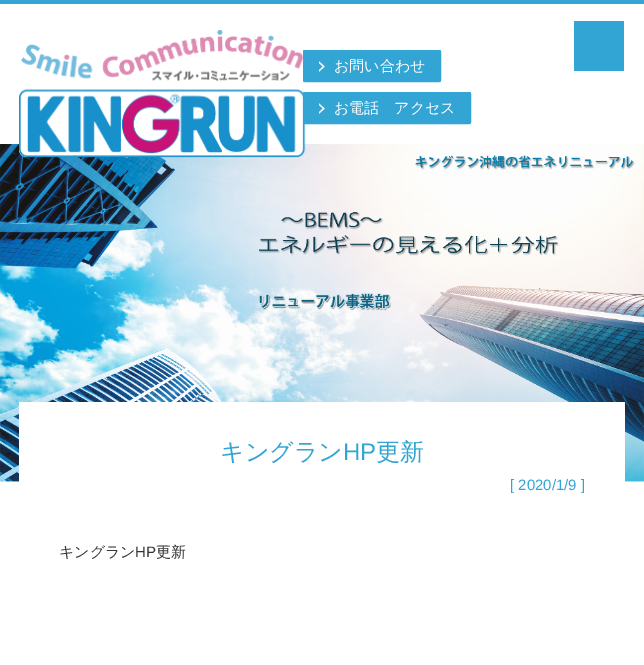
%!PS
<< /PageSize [644 665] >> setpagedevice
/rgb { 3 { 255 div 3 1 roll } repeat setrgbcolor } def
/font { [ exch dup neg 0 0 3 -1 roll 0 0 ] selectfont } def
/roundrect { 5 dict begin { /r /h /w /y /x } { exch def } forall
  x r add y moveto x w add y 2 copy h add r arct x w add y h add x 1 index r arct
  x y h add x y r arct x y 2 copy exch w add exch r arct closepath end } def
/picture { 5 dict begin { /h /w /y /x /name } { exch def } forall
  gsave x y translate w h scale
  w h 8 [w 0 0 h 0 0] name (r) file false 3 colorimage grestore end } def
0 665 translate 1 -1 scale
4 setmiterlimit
255 255 255 rgb
0 0 644 665 rectfill
51 165 213 rgb
574 21 50 50 rectfill
0 0 644 4 rectfill
(img/3.rgb) 0 144 644 338 picture
(img/1.rgb) 19 30 287 128 picture
303 50 138 32 2 roundrect fill
(img/2.rgb) 319 61 6 11 picture
303.5 50.5 137 31 1.5 roundrect stroke
303 92 168 32 2 roundrect fill
(img/2.rgb) 319 103 6 11 picture
303.5 92.5 167 31 1.5 roundrect stroke
255 255 255 rgb
19 402 606 80 rectfill
/WenQuanYiZenHei-Medium 15 font
334 71 moveto (お問い合わせ) show
334 113 moveto (お電話　アクセス) show
/WenQuanYiZenHei-Medium 24 font
51 165 213 rgb
220 460 moveto (キングラン) show
/LiberationSans-Regular 24 font
343 460 moveto (HP) show
/WenQuanYiZenHei-Medium 24 font
376 460 moveto (更新) show
/LiberationSans-Regular 15 font
510 490 moveto ([ 2020/1/9 ]) show
/WenQuanYiZenHei-Medium 15 font
51 51 51 rgb
59 557 moveto (キングラン) show
/LiberationSans-Regular 15 font
135 557 moveto (HP) show
/WenQuanYiZenHei-Medium 15 font
156 557 moveto (更新) show
showpage
